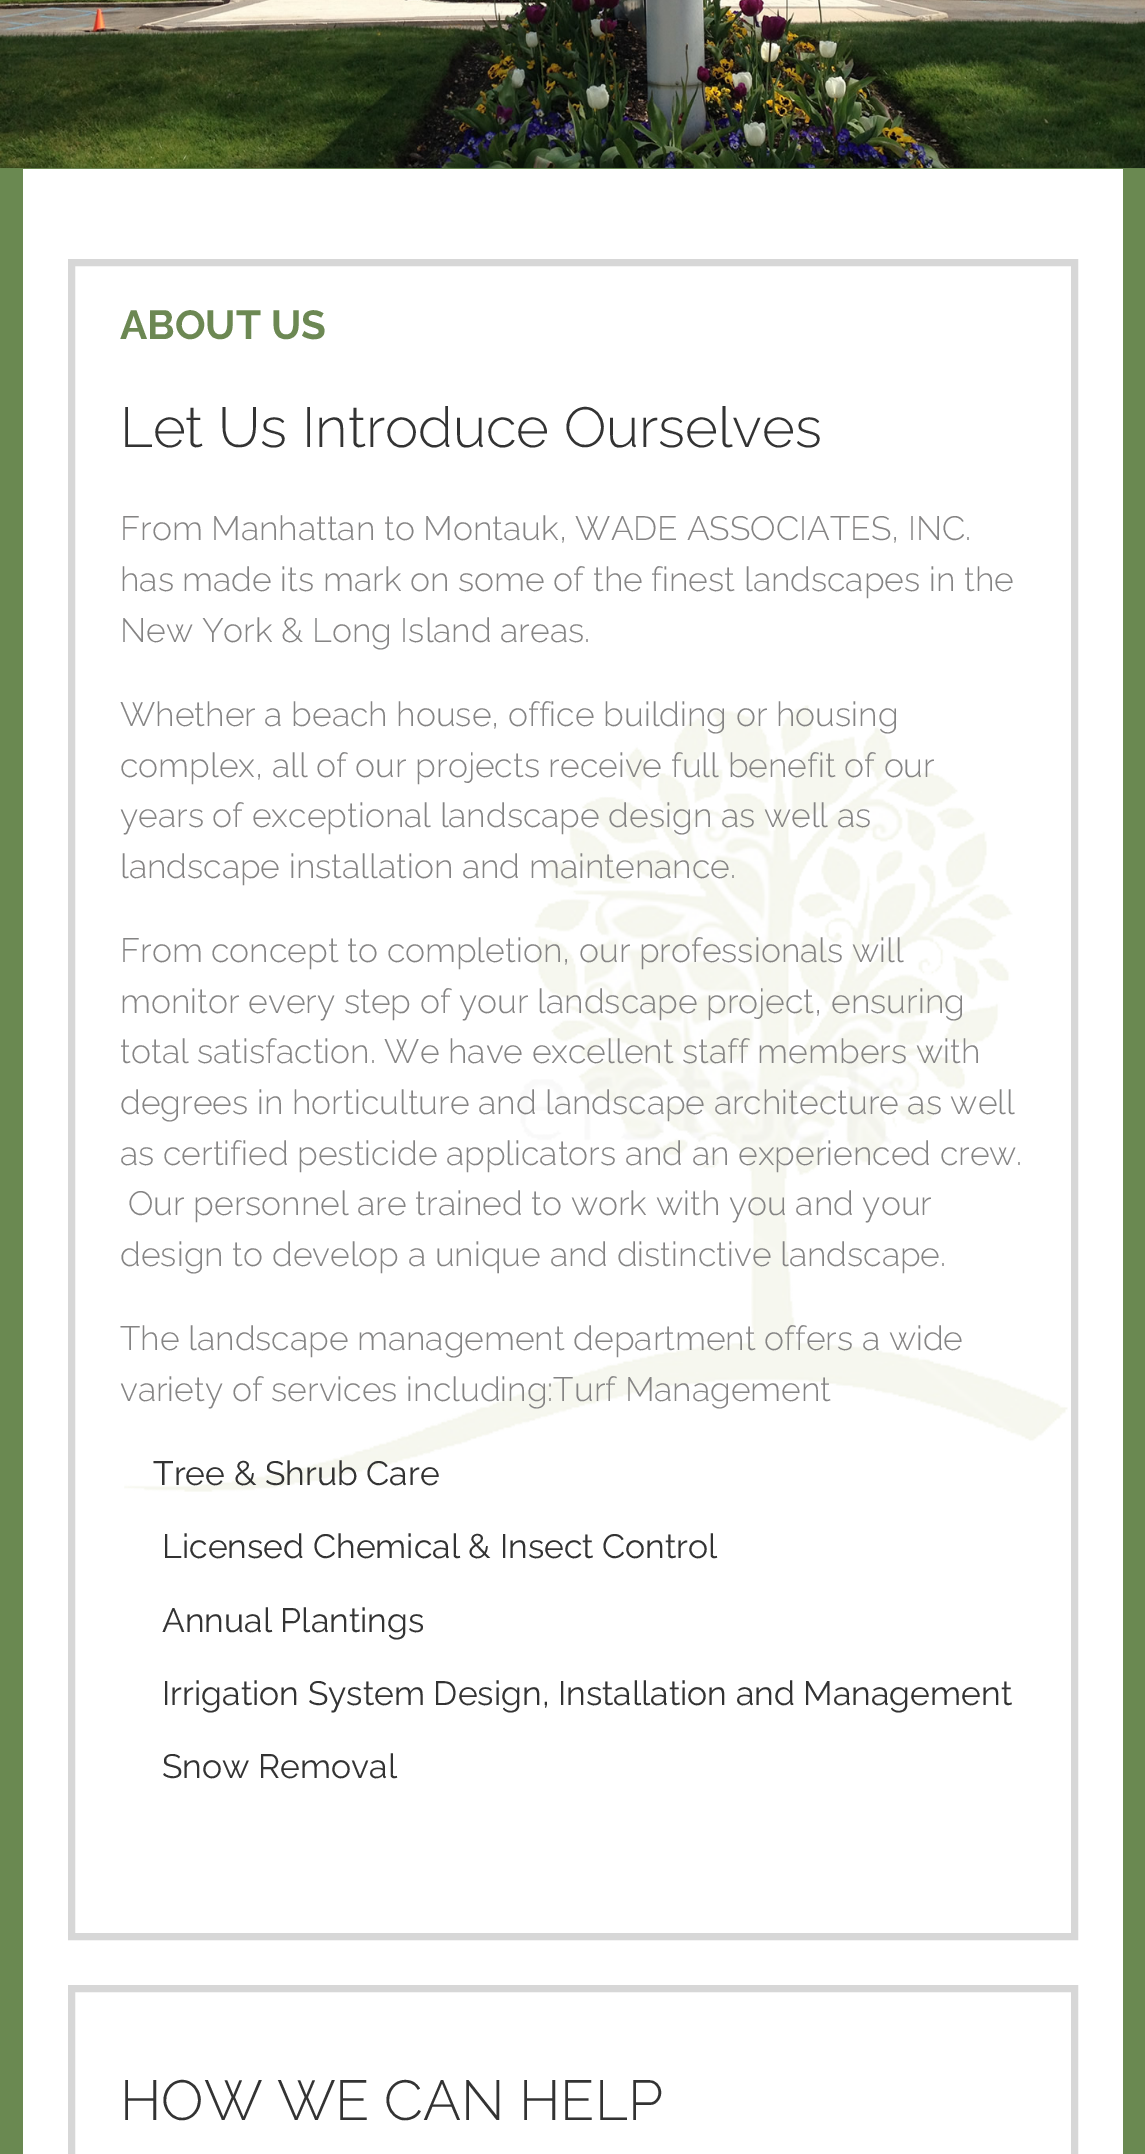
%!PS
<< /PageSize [1145 2154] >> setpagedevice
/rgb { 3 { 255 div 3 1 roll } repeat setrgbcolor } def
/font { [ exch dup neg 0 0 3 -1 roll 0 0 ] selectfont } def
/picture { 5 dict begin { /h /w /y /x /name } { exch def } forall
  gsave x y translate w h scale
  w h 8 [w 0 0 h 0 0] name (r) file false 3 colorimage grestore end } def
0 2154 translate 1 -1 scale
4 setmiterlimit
106 137 81 rgb
0 0 1145 2154 rectfill
(img/1.rgb) 0 0 1145 169 picture
255 255 255 rgb
23 169 1100 1985 rectfill
(img/2.rgb) 124 705 944 787 picture
215 215 215 rgb
7 setlinewidth
71.5 262.5 1003 1674 rectstroke
71.5 1988.5 1003 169 rectstroke
/Raleway-Bold 40.5 font
108 136 83 rgb
120 339 moveto (ABOUT US) show
/Raleway-Light 56.25 font
51 51 51 rgb
120 447 moveto (Let Us Introduce Ourselves) show
/Raleway-Light 33.75 font
133 132 132 rgb
[
  [(From Manhattan to Montauk, WADE ASSOCIATES, INC.) 120 540]
  [(has made its mark on some of the finest landscapes in the) 120 591]
  [(New York & Long Island areas.) 120 642]
  [(Whether a beach house, office building or housing) 120 726]
  [(complex, all of our projects receive full benefit of our) 120 777]
  [(years of exceptional landscape design as well as) 120 827]
  [(landscape installation and maintenance.) 120 878]
  [(From concept to completion, our professionals will) 120 962]
  [(monitor every step of your landscape project, ensuring) 120 1013]
  [(total satisfaction. We have excellent staff members with) 120 1063]
  [(degrees in horticulture and landscape architecture as well) 120 1114]
  [(as certified pesticide applicators and an experienced crew.) 120 1165]
  [(Our personnel are trained to work with you and your) 128 1215]
  [(design to develop a unique and distinctive landscape.) 120 1266]
  [(The landscape management department offers a wide) 120 1350]
  [(variety of services including:Turf Management) 120 1401]
] { aload pop moveto show } forall
/Raleway-Regular 33.75 font
51 51 51 rgb
[
  [(Tree & Shrub Care) 153 1485]
  [(Licensed Chemical & Insect Control) 162 1558]
  [(Annual Plantings) 162 1632]
  [(Irrigation System Design, Installation and Management) 162 1705]
  [(Snow Removal) 162 1778]
] { aload pop moveto show } forall
/Raleway-Light 56.25 font
120 2120 moveto (HOW WE CAN HELP) show
showpage
